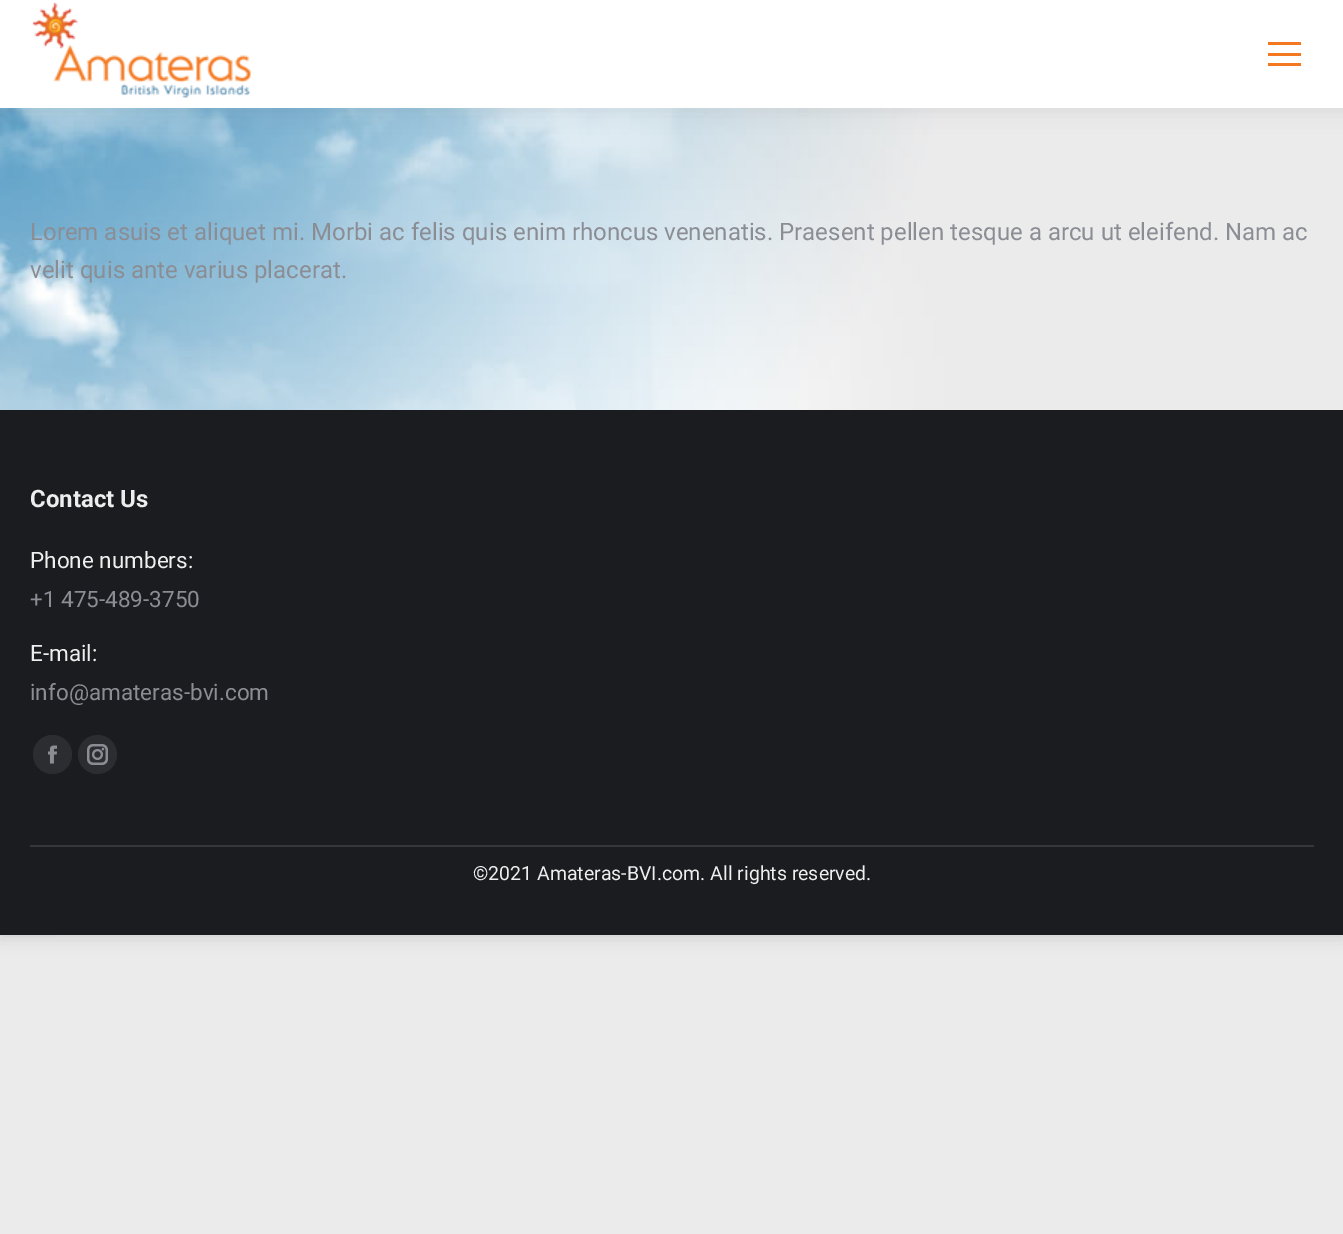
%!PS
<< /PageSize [1343 1234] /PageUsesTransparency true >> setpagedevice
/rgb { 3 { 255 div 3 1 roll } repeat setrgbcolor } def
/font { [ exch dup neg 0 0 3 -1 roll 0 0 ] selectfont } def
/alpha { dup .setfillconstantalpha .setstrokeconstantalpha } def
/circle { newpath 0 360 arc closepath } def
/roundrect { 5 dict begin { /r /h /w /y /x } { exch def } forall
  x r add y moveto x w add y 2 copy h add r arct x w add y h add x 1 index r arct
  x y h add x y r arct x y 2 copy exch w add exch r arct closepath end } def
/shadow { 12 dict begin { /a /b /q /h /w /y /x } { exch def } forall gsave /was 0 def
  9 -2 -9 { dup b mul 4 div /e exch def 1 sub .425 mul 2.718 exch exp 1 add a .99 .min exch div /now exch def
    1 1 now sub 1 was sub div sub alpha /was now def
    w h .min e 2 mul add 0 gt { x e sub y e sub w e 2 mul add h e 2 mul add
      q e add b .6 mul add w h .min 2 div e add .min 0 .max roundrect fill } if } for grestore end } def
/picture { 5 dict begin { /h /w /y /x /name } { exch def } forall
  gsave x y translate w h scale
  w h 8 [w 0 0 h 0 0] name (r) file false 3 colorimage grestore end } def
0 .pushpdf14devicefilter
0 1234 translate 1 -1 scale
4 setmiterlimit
255 255 255 rgb
0 0 1343 1234 rectfill
(img/1.rgb) 0 935 1343 299 picture
0 0 0 rgb
0 0 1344 935 0 9 0.15 shadow
(img/2.rgb) 0 108 1343 302 picture
-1 -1 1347 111 0 11 0.07 shadow
255 255 255 rgb
0 0 1343 108 rectfill
(img/3.rgb) 32 2 219 96 picture
[
  [1268 42 33 3 244 120 32]
  [1268 53 33 3 244 120 32]
  [1268 63 33 3 244 120 32]
  [0 410 1343 525 26 28 32]
] { aload pop rgb rectfill } forall
43 45 49 rgb
52.5 754.5 19.5 circle fill
(img/4.rgb) 48 745 9 19 picture
97.5 754.5 19.5 circle fill
(img/5.rgb) 87 744 21 21 picture
53 55 59 rgb
30 845 1284 2 rectfill
/Roboto-Regular 24 font
139 141 148 rgb
30 240 moveto (Lorem asuis et aliquet mi. Morbi ac felis quis enim rhoncus venenatis. Praesent pellen tesque a arcu ut eleifend. Nam ac) show
30 278 moveto (velit quis ante varius placerat.) show
/Roboto-Bold 24 font
238 238 238 rgb
30 507 moveto (Contact Us) show
/Roboto-Regular 22.5 font
30 568 moveto (Phone numbers:) show
139 141 148 rgb
30 607 moveto (+1 475-489-3750) show
238 238 238 rgb
30 661 moveto (E-mail:) show
139 141 148 rgb
30 700 moveto (info@amateras-bvi.com) show
/Roboto-Regular 19.5 font
238 238 238 rgb
473 880 moveto (©2021 Amateras-BVI.com. All rights reserved.) show
.poppdf14devicefilter showpage
